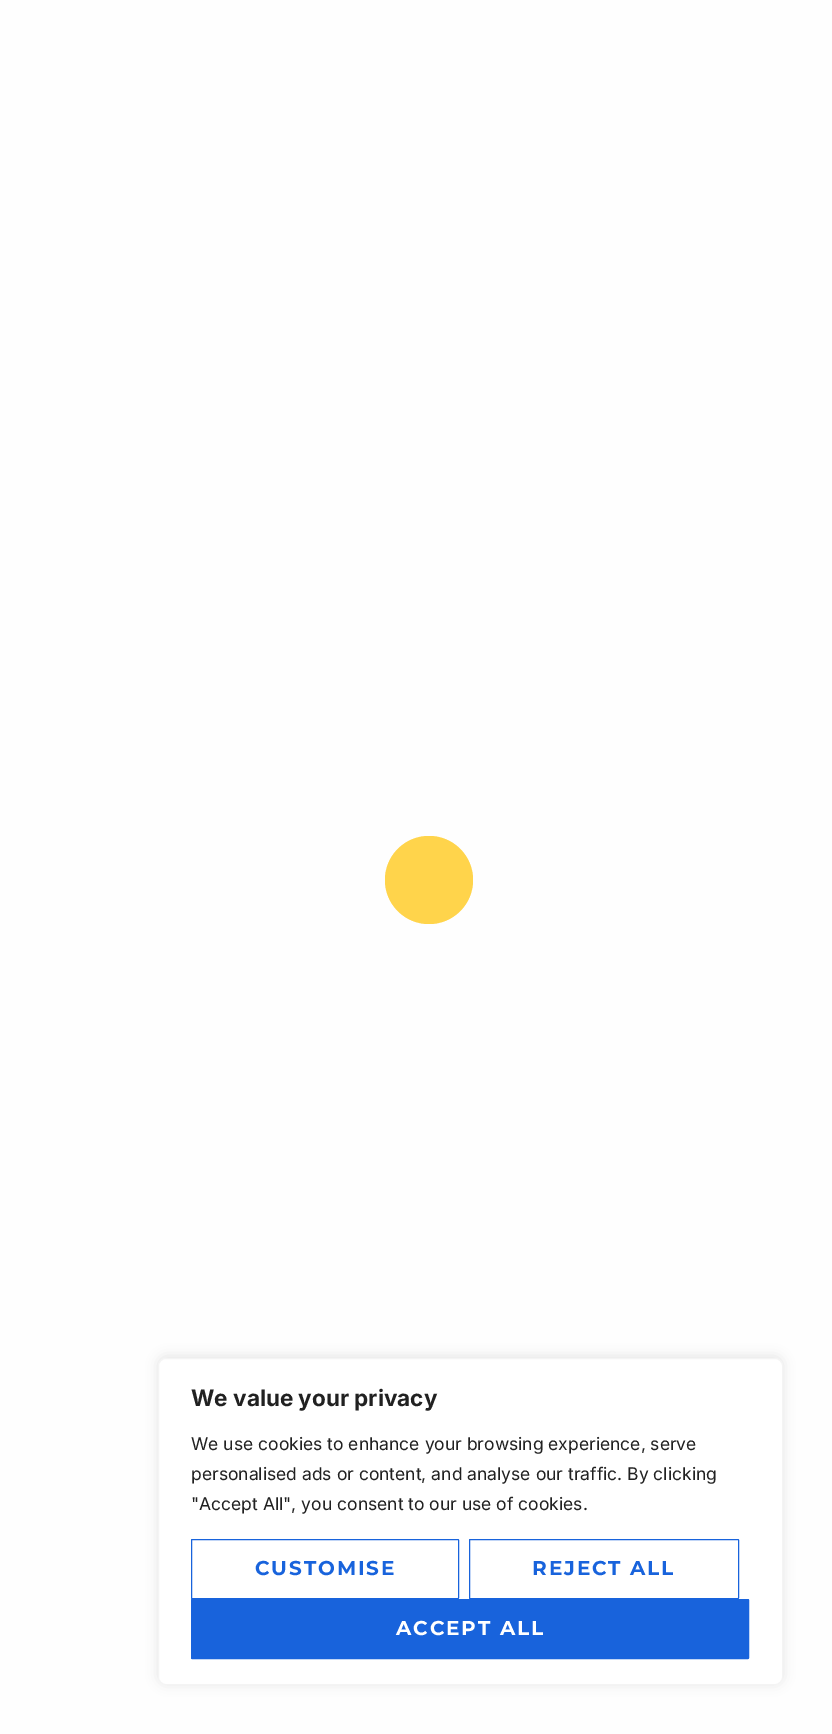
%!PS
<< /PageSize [832 1734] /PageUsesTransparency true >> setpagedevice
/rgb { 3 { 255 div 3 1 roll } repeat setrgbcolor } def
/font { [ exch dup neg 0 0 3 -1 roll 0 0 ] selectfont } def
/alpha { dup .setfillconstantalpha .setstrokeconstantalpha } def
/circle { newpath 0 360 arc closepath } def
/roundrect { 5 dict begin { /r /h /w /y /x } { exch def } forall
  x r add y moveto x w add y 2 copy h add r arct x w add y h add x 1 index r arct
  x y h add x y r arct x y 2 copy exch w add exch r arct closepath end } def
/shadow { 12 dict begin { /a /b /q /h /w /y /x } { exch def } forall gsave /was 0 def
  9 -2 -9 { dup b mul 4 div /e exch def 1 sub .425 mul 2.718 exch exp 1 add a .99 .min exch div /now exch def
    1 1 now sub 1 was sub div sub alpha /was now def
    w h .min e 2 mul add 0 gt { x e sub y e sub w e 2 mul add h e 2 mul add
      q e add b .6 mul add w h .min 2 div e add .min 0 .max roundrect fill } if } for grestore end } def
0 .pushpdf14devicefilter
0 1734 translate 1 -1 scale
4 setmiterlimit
254 254 254 rgb
0 0 832 1734 rectfill
255 224 126 rgb
429 880 44 circle fill
0.6 alpha
255 204 41 rgb
429 880 44 circle fill
1 alpha
172 171 171 rgb
158 1356 625 328 8 6 0.3 shadow
255 255 255 rgb
158.5 1358.5 624 326 7.5 roundrect gsave fill grestore
244 244 244 rgb
stroke
24 99 220 rgb
191.5 1539.5 267 59 0.5 roundrect stroke
469.5 1539.5 269 59 0.5 roundrect stroke
191.5 1599.5 557 59 0.5 roundrect gsave fill grestore
stroke
/Inter-Bold 22.5 font
33 33 33 rgb
191 1406 moveto (We value your privacy) show
/Inter-Regular 17.5 font
[
  [(We use cookies to enhance your browsing experience, serve) 191 1450]
  [(personalised ads or content, and analyse our traffic. By clicking) 191 1480]
  [("Accept All", you consent to our use of cookies.) 191 1510]
] { aload pop moveto show } forall
/Montserrat-Bold 20 font
24 99 220 rgb
255 1575 moveto 1.9 0 (CUSTOMISE) ashow
532 1575 moveto 1.9 0 (REJECT ALL) ashow
255 255 255 rgb
396 1635 moveto 1.9 0 (ACCEPT ALL) ashow
.poppdf14devicefilter showpage
